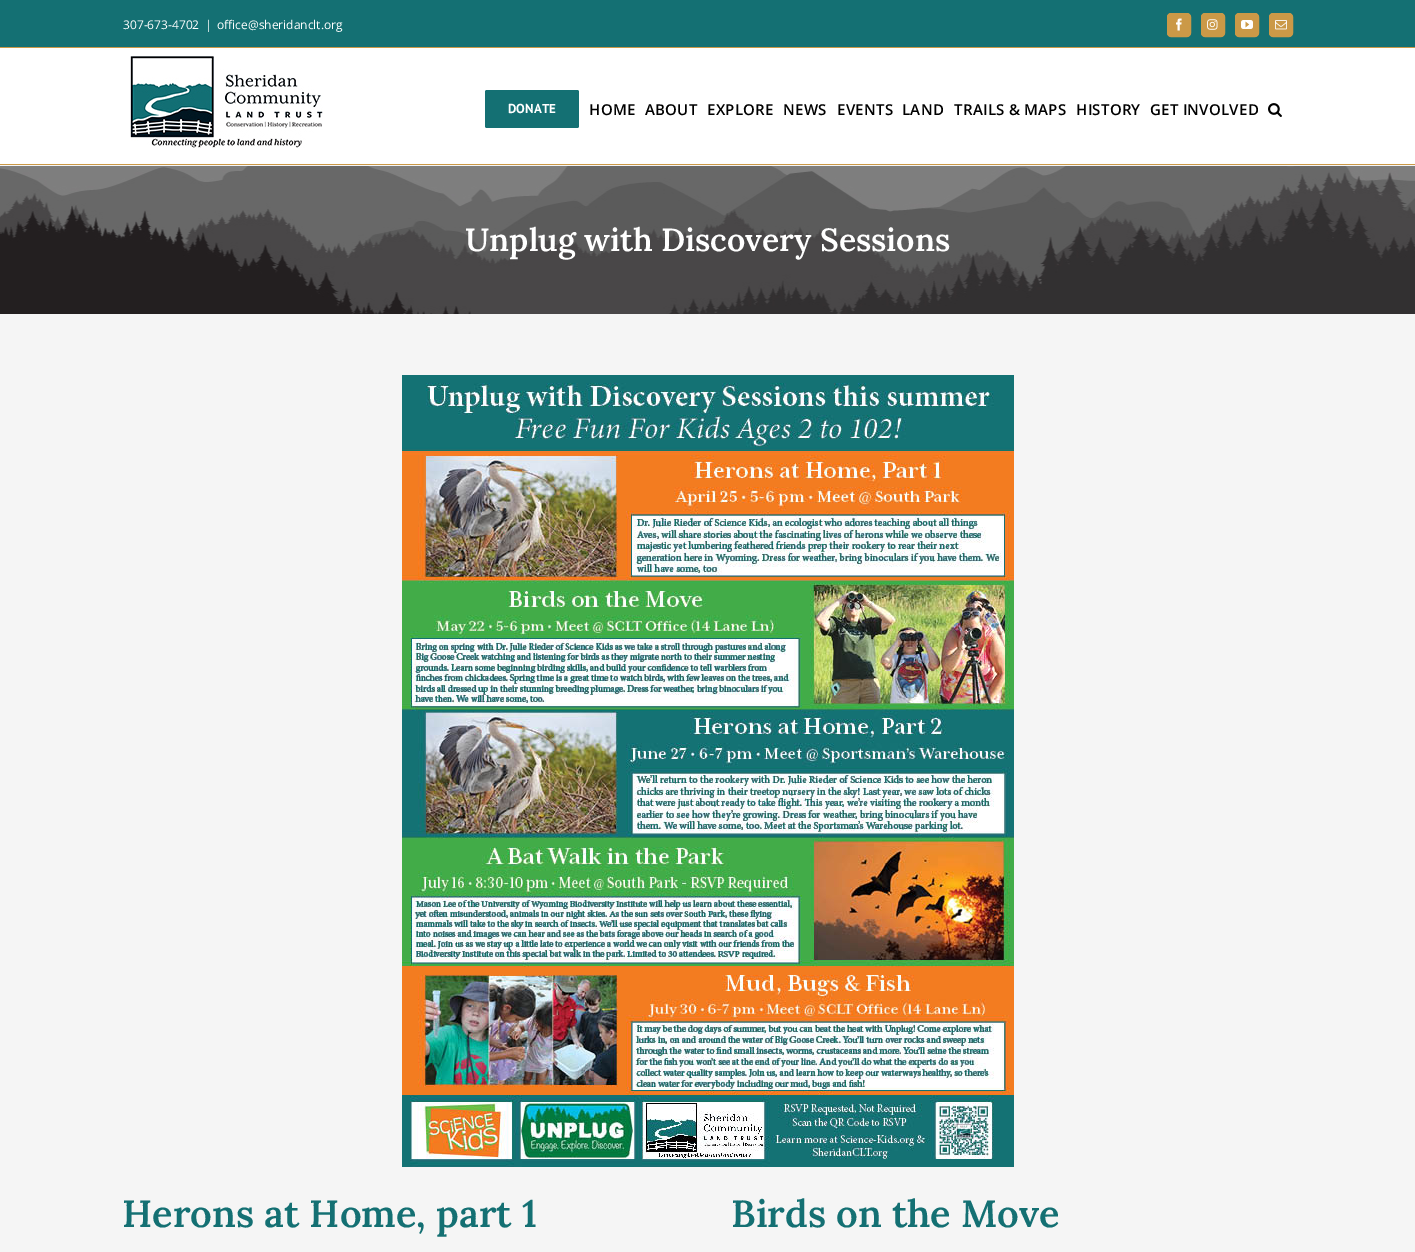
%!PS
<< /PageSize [1415 1252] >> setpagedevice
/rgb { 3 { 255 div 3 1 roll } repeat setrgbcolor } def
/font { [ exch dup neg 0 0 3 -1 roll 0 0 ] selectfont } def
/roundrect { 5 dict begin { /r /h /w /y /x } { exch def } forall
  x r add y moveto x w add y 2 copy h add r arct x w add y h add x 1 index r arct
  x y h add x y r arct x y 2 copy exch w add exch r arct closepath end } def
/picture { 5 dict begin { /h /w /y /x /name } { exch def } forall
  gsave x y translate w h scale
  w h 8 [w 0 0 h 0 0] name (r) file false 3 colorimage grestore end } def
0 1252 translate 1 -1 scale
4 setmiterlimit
245 245 245 rgb
0 0 1415 1252 rectfill
20 112 115 rgb
0 0 1415 47 rectfill
203 153 71 rgb
0 47 1415 1 rectfill
1167.5 13.5 23 23 3.5 roundrect gsave fill grestore
stroke
(img/1.rgb) 1176 18 6 13 picture
1201.5 13.5 23 23 3.5 roundrect gsave fill grestore
stroke
(img/2.rgb) 1207 19 11 11 picture
1235.5 13.5 23 23 3.5 roundrect gsave fill grestore
stroke
(img/3.rgb) 1241 20 12 9 picture
1269.5 13.5 23 23 3.5 roundrect gsave fill grestore
stroke
(img/4.rgb) 1275 20 12 10 picture
255 255 255 rgb
0 48 1415 116 rectfill
203 153 71 rgb
0 164 1415 1 rectfill
(img/5.rgb) 130 56 193 92 picture
20 112 115 rgb
485 90 94 38 2 roundrect fill
(img/6.rgb) 1268 103 14 14 picture
(img/7.rgb) 0 166 1415 148 picture
(img/8.rgb) 402 375 612 792 picture
/OpenSans-Regular 12 font
255 255 255 rgb
[
  [(307-673-4702) 123 29]
  [(|) 205 29]
  [(office@sheridanclt.org) 217 29]
] { aload pop moveto show } forall
/PTSans-Bold 13 font
508 113 moveto (DONATE) show
/OpenSans-SemiBold 15 font
0 0 0 rgb
589 115 moveto 0.25 0 (HOME) ashow
645 115 moveto 0.25 0 (ABOUT) ashow
707 115 moveto 0.25 0 (EXPLORE) ashow
783 115 moveto 0.25 0 (NEWS) ashow
837 115 moveto 0.25 0 (EVENTS) ashow
902 115 moveto 0.25 0 (LAND) ashow
954 115 moveto 0.25 0 (TRAILS & MAPS) ashow
1076 115 moveto 0.25 0 (HISTORY) ashow
1150 115 moveto 0.25 0 (GET INVOLVED) ashow
/Lora-SemiBold 32 font
255 255 255 rgb
465 251 moveto (Unplug with Discovery Sessions) show
/Lora-SemiBold 38 font
20 112 115 rgb
122 1227 moveto (Herons at Home, part 1) show
731 1227 moveto (Birds on the Move) show
showpage
